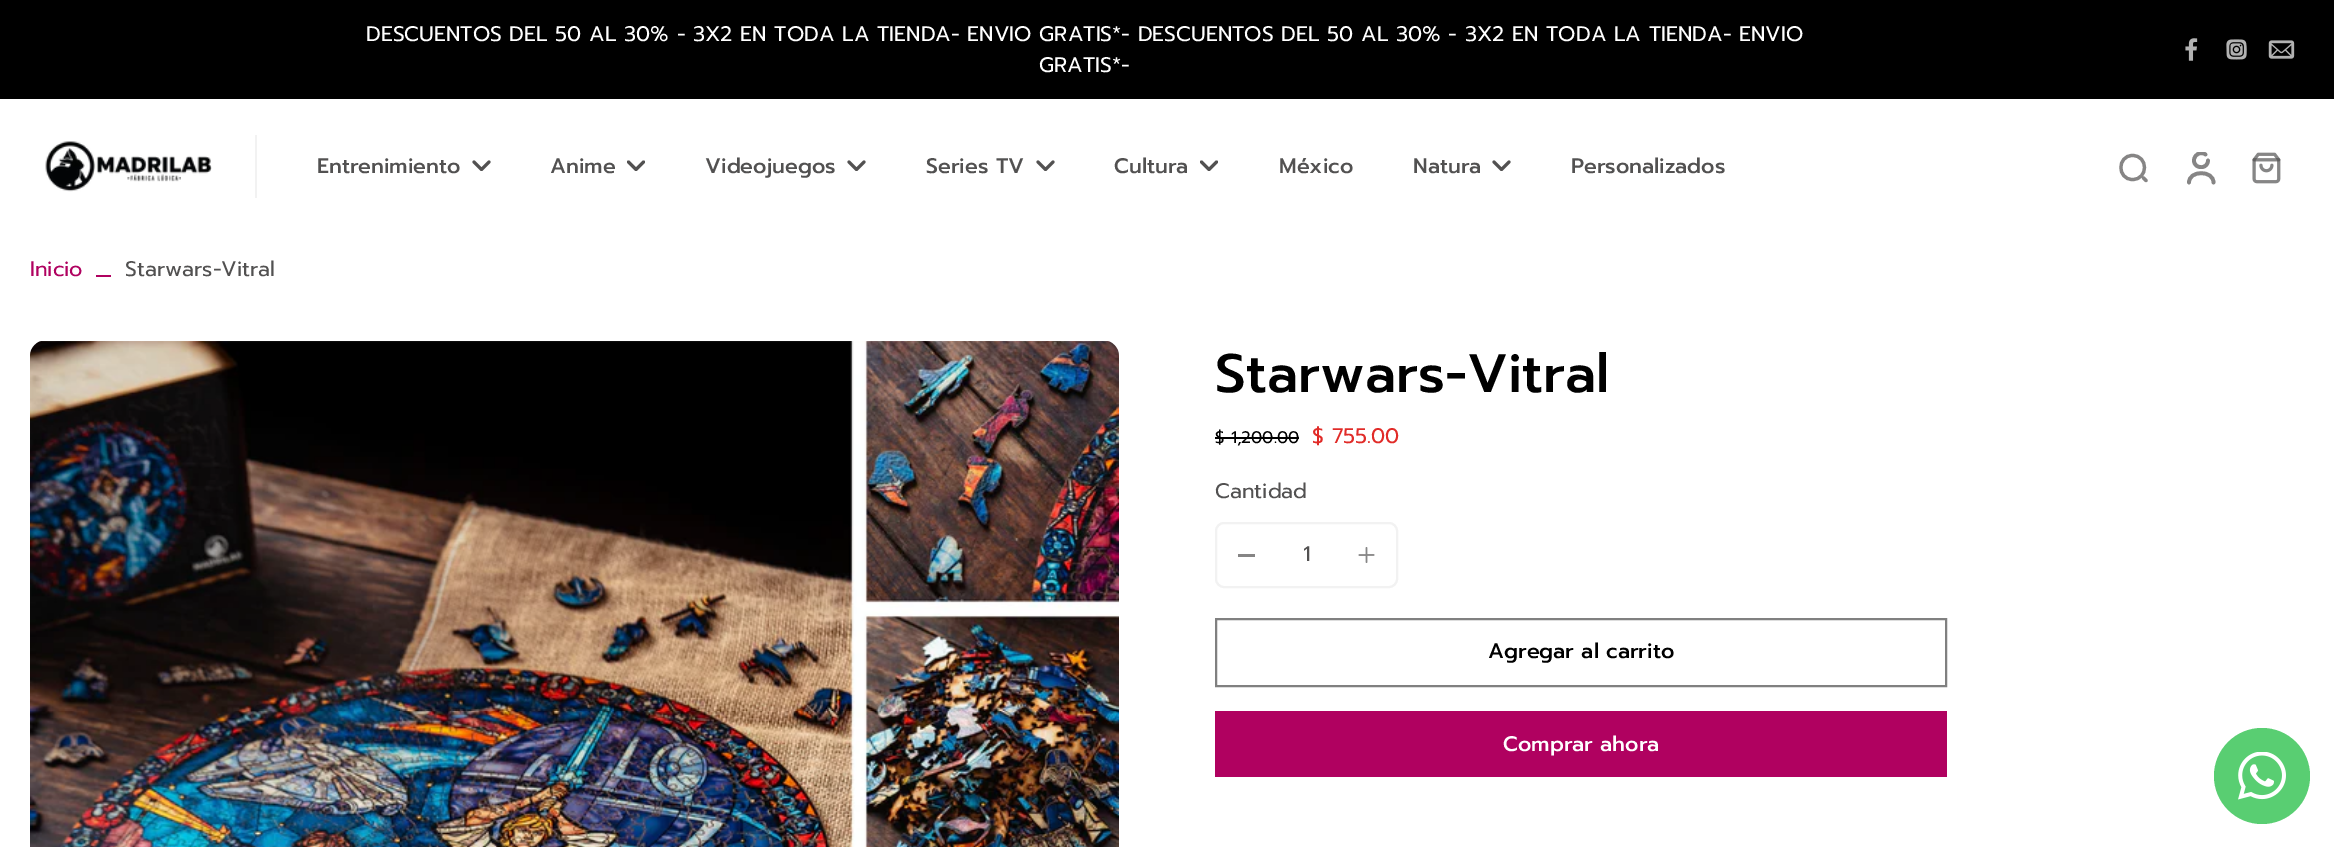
%!PS
<< /PageSize [2334 847] >> setpagedevice
/rgb { 3 { 255 div 3 1 roll } repeat setrgbcolor } def
/font { [ exch dup neg 0 0 3 -1 roll 0 0 ] selectfont } def
/circle { newpath 0 360 arc closepath } def
/roundrect { 5 dict begin { /r /h /w /y /x } { exch def } forall
  x r add y moveto x w add y 2 copy h add r arct x w add y h add x 1 index r arct
  x y h add x y r arct x y 2 copy exch w add exch r arct closepath end } def
/picture { 5 dict begin { /h /w /y /x /name } { exch def } forall
  gsave x y translate w h scale
  w h 8 [w 0 0 h 0 0] name (r) file false 3 colorimage grestore end } def
0 847 translate 1 -1 scale
4 setmiterlimit
255 255 255 rgb
0 0 2334 847 rectfill
0 0 0 rgb
0 0 2334 99 rectfill
(img/1.rgb) 2185 38 13 23 picture
(img/2.rgb) 2226 39 21 21 picture
(img/3.rgb) 2268 40 27 19 picture
242 242 242 rgb
255 135 2 63 rectfill
(img/4.rgb) 45 141 167 51 picture
82 81 81 rgb
3 setlinewidth
1 setlinecap
1 setlinejoin
474 162 moveto 481.5 169.5 lineto 489 162 lineto stroke
628.5 162 moveto 636 169.5 lineto 643.5 162 lineto stroke
849 162 moveto 856.5 169.5 lineto 864 162 lineto stroke
1038 162 moveto 1045.5 169.5 lineto 1053 162 lineto stroke
1201.5 162 moveto 1209 169.5 lineto 1216.5 162 lineto stroke
1494 162 moveto 1501.5 169.5 lineto 1509 162 lineto stroke
134 133 133 rgb
3.2 setlinewidth
2132.5 179.5 moveto 2148.5 179.5 2148.5 155.5 2132.5 155.5 curveto 2117 155.5 2117 179.5 2132.5 179.5 curveto closepath 2146 180.5 moveto 2143.5 178 lineto stroke
gsave
2184 152 33 33 rectclip
3.7 setlinewidth
2205.5 154.5 moveto 2198 149 2189 160.5 2197 166 curveto 2198.5 167 2200.5 167.5 2202.5 167 curveto 2206 166.5 2208 163.5 2208 160.5 curveto stroke
grestore
3.7 setlinewidth
2213.5 182.5 moveto 2213.5 170 2189 170 2189 182.5 curveto stroke
(img/5.rgb) 2252 152 29 32 picture
176 1 96 rgb
96 275 15 2 rectfill
(img/6.rgb) 30 341 1089 506 picture
0 0 0 rgb
1215 437 84 2 rectfill
242 242 242 rgb
2 setlinewidth
0 setlinecap
0 setlinejoin
1216 523 181 64 8 roundrect stroke
134 133 133 rgb
1238 554 17 3 rectfill
(img/7.rgb) 1358 547 17 16 picture
128 128 128 rgb
1216 619 730 67 rectstroke
176 1 96 rgb
1215 711 732 66 rectfill
89 206 114 rgb
2262 776 48 circle fill
(img/8.rgb) 2238 752 48 48 picture
/Prompt-Regular 21 font
255 255 255 rgb
366 41 moveto (DESCUENTOS DEL 50 AL 30% - 3X2 EN TODA LA TIENDA- ENVIO GRATIS*- DESCUENTOS DEL 50 AL 30% - 3X2 EN TODA LA TIENDA- ENVIO) show
1039 72 moveto (GRATIS*-) show
/Prompt-Medium 21 font
82 81 81 rgb
[
  [(Entrenimiento) 317 173]
  [(Anime) 550 173]
  [(Videojuegos) 705 173]
  [(Series TV) 926 173]
  [(Cultura) 1114 173]
  [(México) 1279 173]
  [(Natura) 1413 173]
  [(Personalizados) 1571 173]
] { aload pop moveto show } forall
/Prompt-Regular 21 font
176 1 96 rgb
30 276 moveto (Inicio) show
82 81 81 rgb
125 276 moveto (Starwars-Vitral) show
/Prompt-Medium 54 font
0 0 0 rgb
1215 392 moveto (Starwars-Vitral) show
/Prompt-Regular 16.75 font
1215 443 moveto ($ 1,200.00) show
/Prompt-Regular 21 font
225 43 40 rgb
1312 443 moveto ($ 755.00) show
82 81 81 rgb
1215 498 moveto (Cantidad) show
1303 561 moveto (1) show
/Prompt-Medium 21 font
0 0 0 rgb
1488 658 moveto (Agregar al carrito) show
255 255 255 rgb
1503 751 moveto (Comprar ahora) show
showpage
